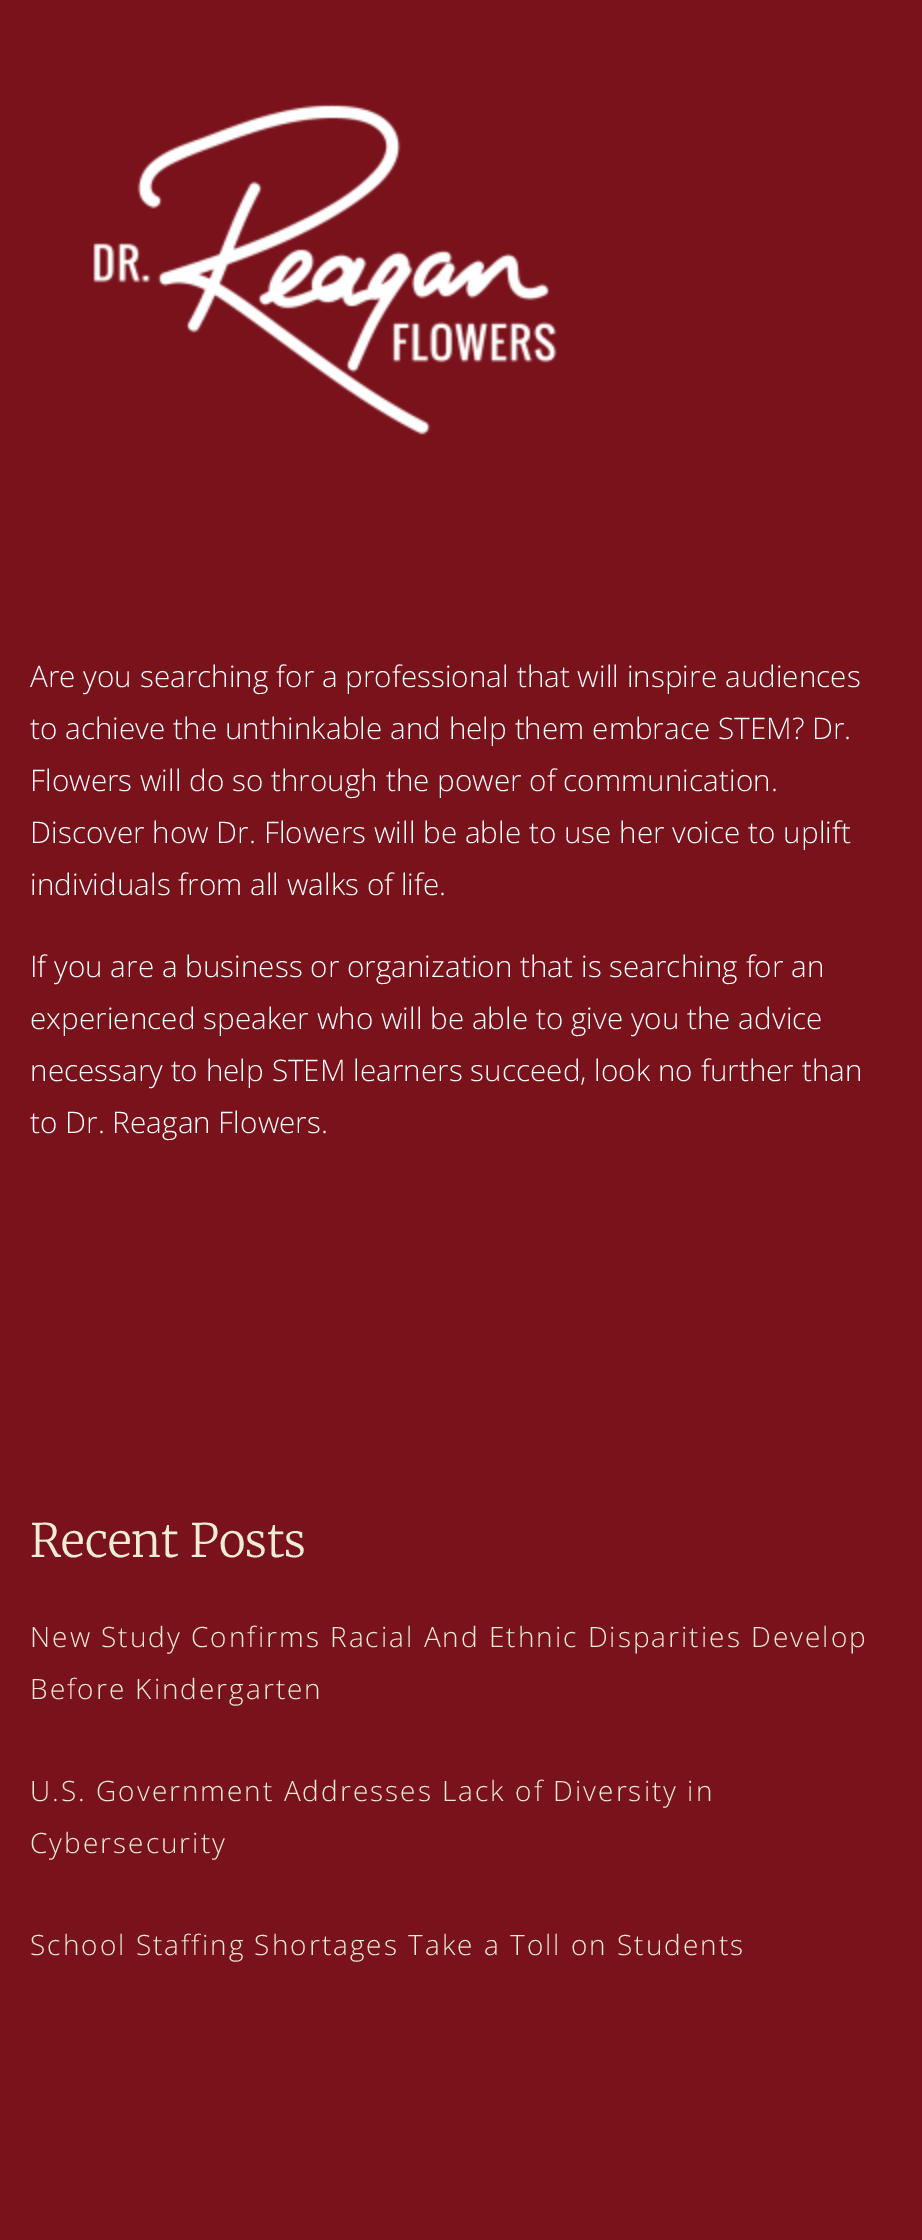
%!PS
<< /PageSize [922 2240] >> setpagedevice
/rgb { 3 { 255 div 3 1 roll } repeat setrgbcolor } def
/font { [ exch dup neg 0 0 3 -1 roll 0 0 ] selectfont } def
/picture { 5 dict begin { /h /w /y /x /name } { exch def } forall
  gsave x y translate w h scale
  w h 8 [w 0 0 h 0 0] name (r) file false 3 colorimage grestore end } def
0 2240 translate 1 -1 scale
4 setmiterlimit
122 18 28 rgb
0 0 922 2240 rectfill
(img/1.rgb) 93 103 464 332 picture
/OpenSans-Light 29.7 font
255 255 255 rgb
[
  [(Are you searching for a professional that will inspire audiences) 30 687]
  [(to achieve the unthinkable and help them embrace STEM? Dr.) 30 739]
  [(Flowers will do so through the power of communication.) 30 791]
  [(Discover how Dr. Flowers will be able to use her voice to uplift) 30 843]
  [(individuals from all walks of life.) 30 895]
  [(If you are a business or organization that is searching for an) 30 977]
  [(experienced speaker who will be able to give you the advice) 30 1029]
  [(necessary to help STEM learners succeed, look no further than) 30 1081]
  [(to Dr. Reagan Flowers.) 30 1133]
] { aload pop moveto show } forall
/Merriweather-Light 46 font
239 236 216 rgb
30 1557 moveto (Recent Posts) show
/OpenSans-Light 28 font
30 1647 moveto 2 0 (New Study Confirms Racial And Ethnic Disparities Develop) ashow
30 1699 moveto 2 0 (Before Kindergarten) ashow
30 1801 moveto 2 0 (U.S. Government Addresses Lack of Diversity in) ashow
30 1853 moveto 2 0 (Cybersecurity) ashow
30 1955 moveto 2 0 (School Staffing Shortages Take a Toll on Students) ashow
showpage
